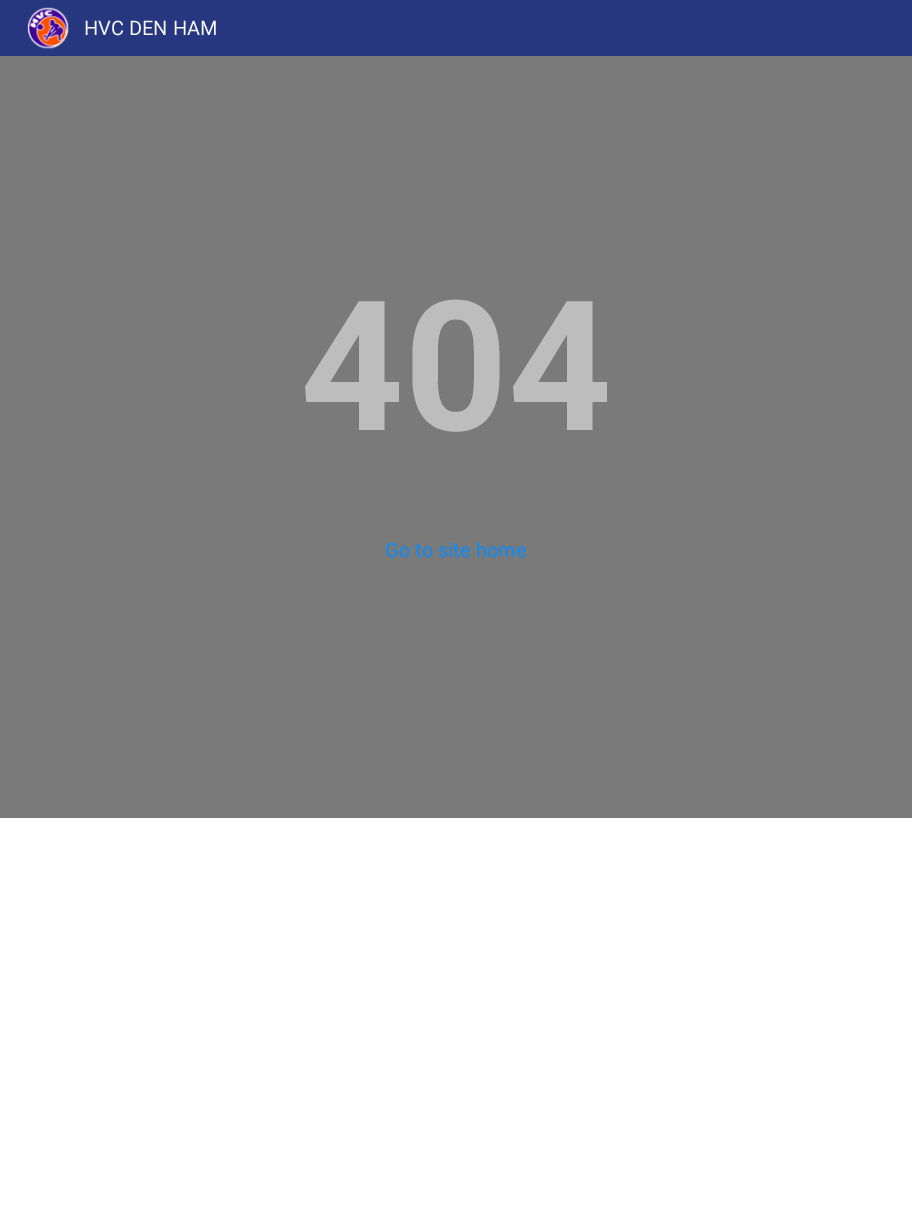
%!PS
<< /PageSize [912 1221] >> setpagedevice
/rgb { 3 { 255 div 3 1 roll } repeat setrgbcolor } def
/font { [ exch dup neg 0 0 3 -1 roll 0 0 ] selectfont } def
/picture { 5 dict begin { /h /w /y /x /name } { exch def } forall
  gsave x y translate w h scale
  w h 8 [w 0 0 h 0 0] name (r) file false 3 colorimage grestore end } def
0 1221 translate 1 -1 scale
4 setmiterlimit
255 255 255 rgb
0 0 912 1221 rectfill
38 55 128 rgb
0 0 912 56 rectfill
(img/1.rgb) 27 7 42 42 picture
122 122 122 rgb
0 56 912 762 rectfill
/Roboto-Regular 20 font
249 249 249 rgb
84 35 moveto (HVC DEN HAM) show
/Roboto-Bold 181 font
189 189 189 rgb
300 430 moveto (404) show
/Roboto-Medium 20 font
30 136 229 rgb
385 557 moveto (Go to site home) show
showpage
